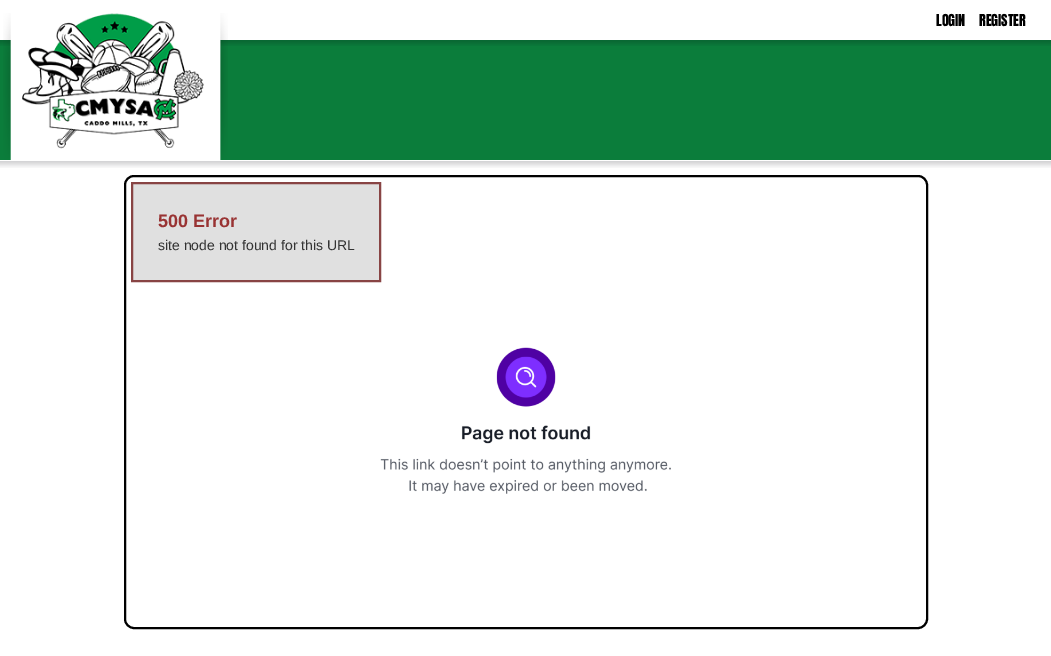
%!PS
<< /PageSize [1051 656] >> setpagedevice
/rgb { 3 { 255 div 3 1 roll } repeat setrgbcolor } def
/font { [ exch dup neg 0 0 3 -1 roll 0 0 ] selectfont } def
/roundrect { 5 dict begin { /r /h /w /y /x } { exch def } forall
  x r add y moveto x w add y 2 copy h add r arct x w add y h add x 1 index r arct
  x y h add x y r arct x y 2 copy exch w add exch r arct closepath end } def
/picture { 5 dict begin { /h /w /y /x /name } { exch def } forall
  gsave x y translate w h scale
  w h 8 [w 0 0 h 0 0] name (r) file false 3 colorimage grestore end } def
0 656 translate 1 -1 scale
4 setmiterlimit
255 255 255 rgb
0 0 1051 656 rectfill
11 125 59 rgb
0 40 1051 120 rectfill
(img/1.rgb) 0 40 1051 6 picture
(img/2.rgb) 3 13 225 147 picture
(img/3.rgb) 0 161 1051 7 picture
(img/4.rgb) 380 347 291 147 picture
0 0 0 rgb
2 setlinewidth
125 176 802 452 9 roundrect stroke
224 224 224 rgb
132 183 moveto 380 183 lineto 380 281 lineto 132 281 lineto closepath gsave fill grestore
136 68 68 rgb
stroke
/Anton-Regular 14 font
0 0 0 rgb
936 26 moveto (LOGIN) show
979 26 moveto (REGISTER) show
/LiberationSans-Bold 18 font
153 51 51 rgb
158 227 moveto (500 Error) show
/LiberationSans-Regular 14 font
51 51 51 rgb
158 250 moveto (site node not found for this URL) show
showpage
